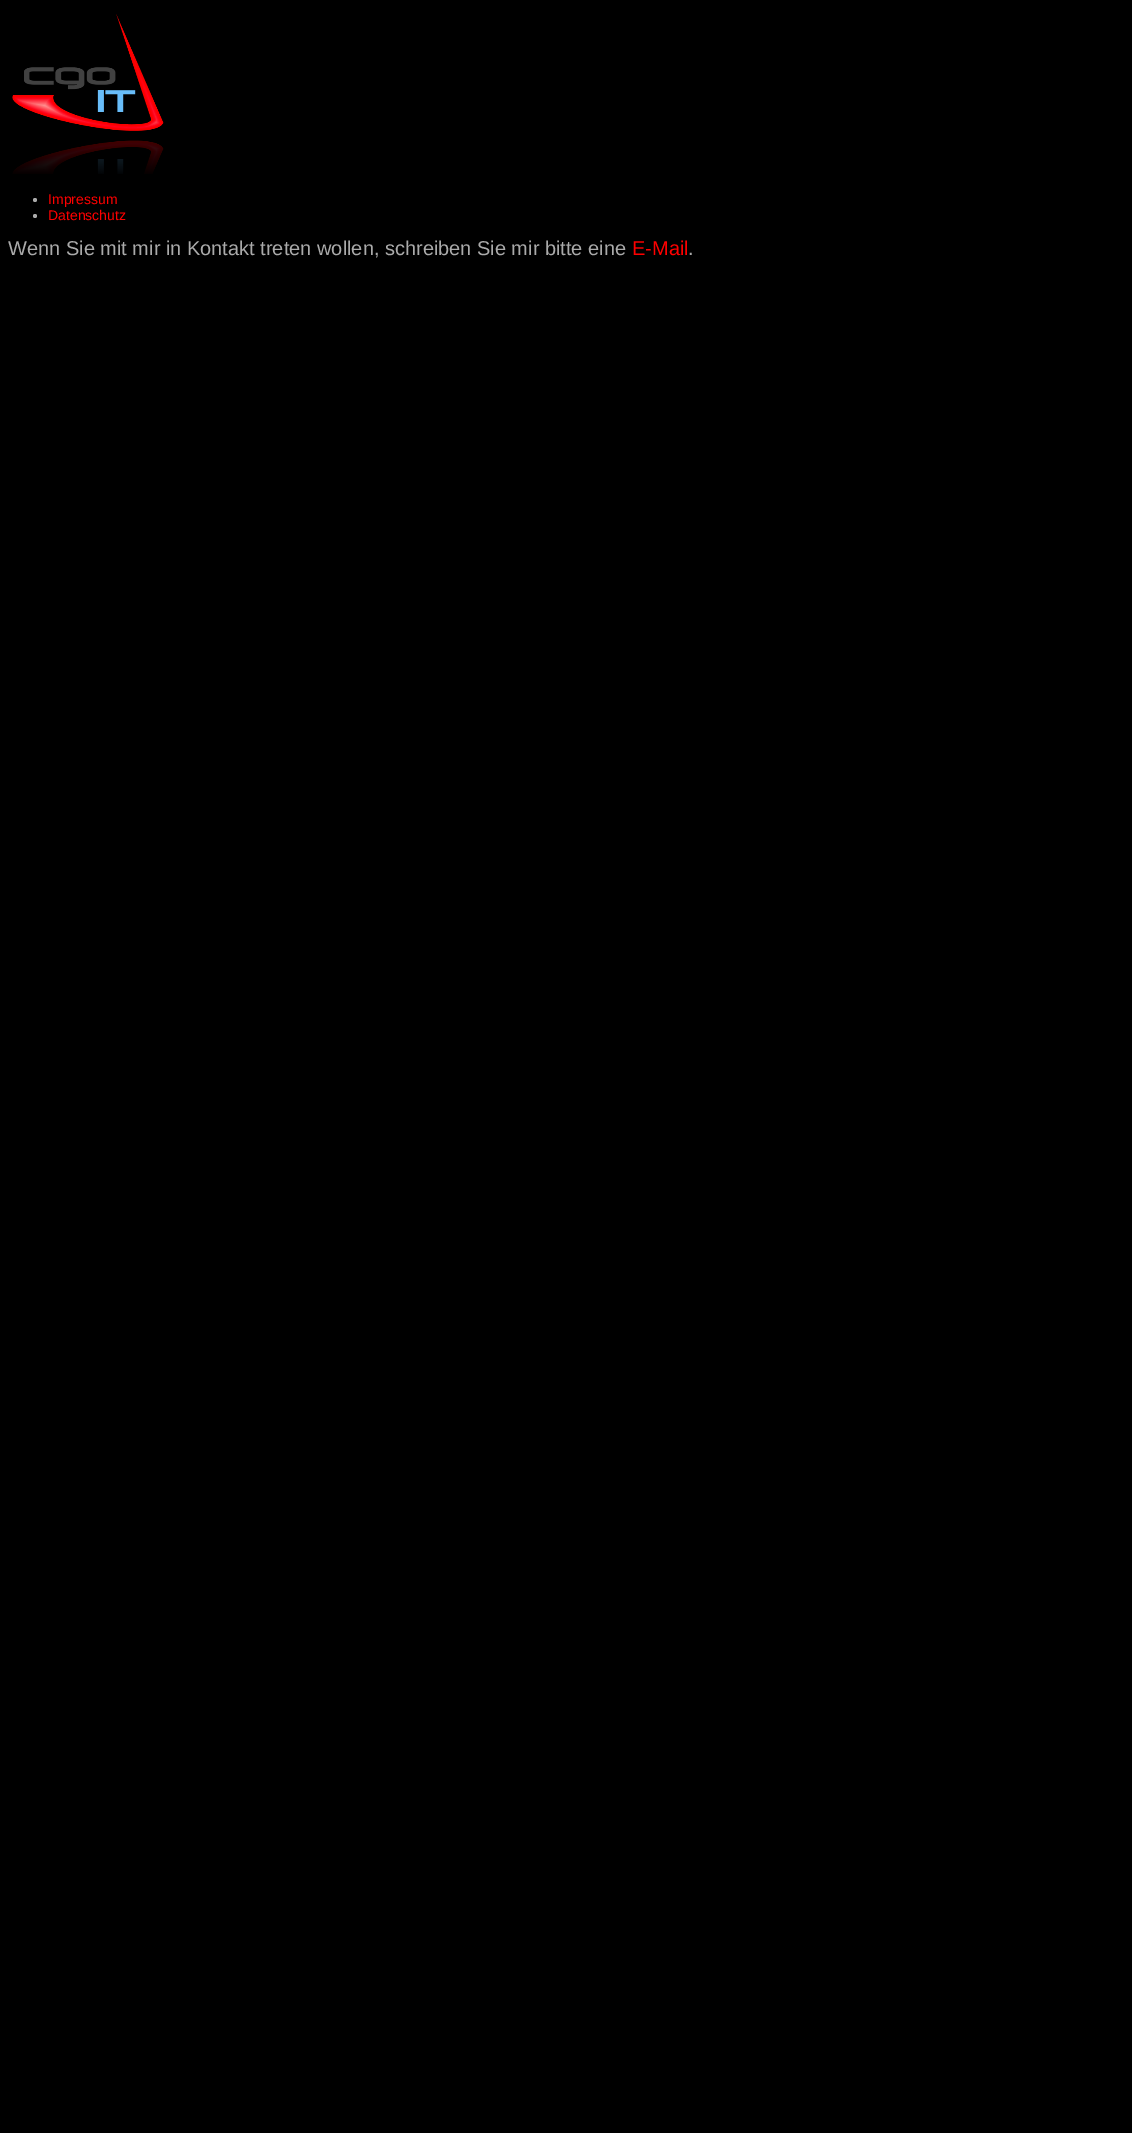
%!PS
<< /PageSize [1132 2133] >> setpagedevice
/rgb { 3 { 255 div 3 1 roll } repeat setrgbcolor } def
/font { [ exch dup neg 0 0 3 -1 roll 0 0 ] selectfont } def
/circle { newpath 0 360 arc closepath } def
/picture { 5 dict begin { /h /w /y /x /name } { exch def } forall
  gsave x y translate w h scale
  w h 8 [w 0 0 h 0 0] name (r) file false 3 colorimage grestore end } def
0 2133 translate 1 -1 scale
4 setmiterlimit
0 0 0 rgb
0 0 1132 2133 rectfill
(img/1.rgb) 12 14 152 160 picture
170 170 170 rgb
35 200 2 circle fill
35 216 2 circle fill
/LiberationSans-Regular 14 font
255 0 0 rgb
48 204 moveto (Impressum) show
48 220 moveto (Datenschutz) show
/LiberationSans-Regular 20 font
170 170 170 rgb
8 255 moveto (Wenn Sie mit mir in Kontakt treten wollen, schreiben Sie mir bitte eine) show
255 0 0 rgb
632 255 moveto (E-Mail) show
170 170 170 rgb
688 255 moveto (.) show
showpage
